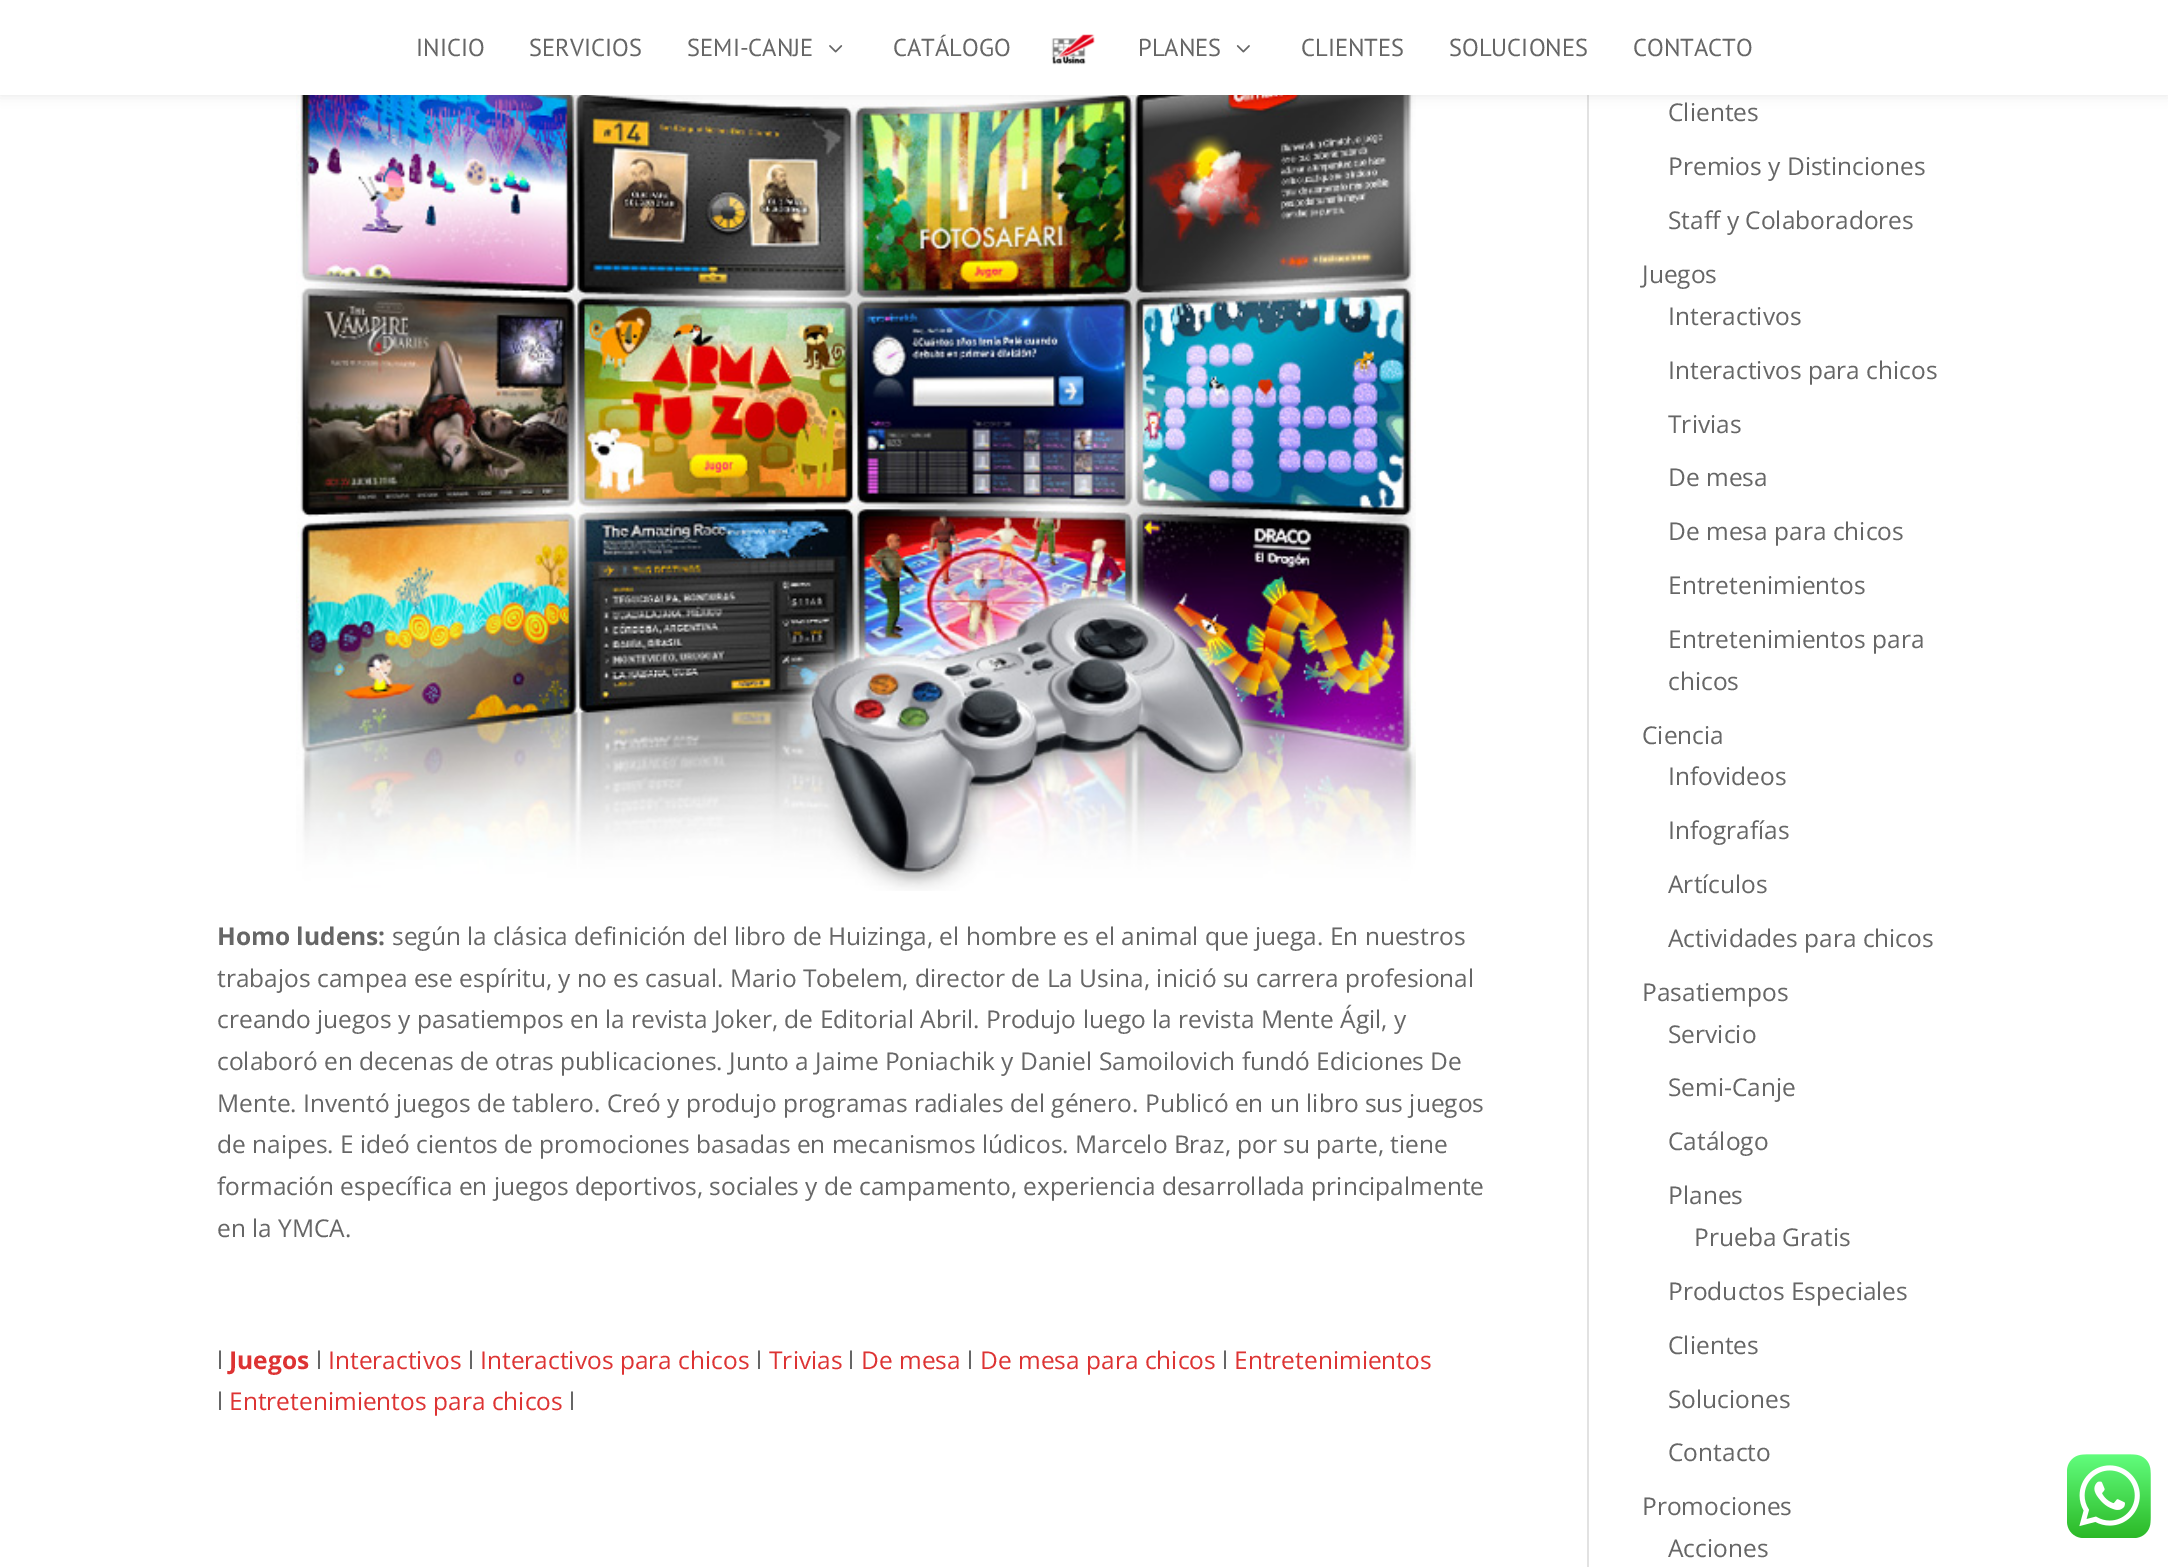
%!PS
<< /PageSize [2168 1567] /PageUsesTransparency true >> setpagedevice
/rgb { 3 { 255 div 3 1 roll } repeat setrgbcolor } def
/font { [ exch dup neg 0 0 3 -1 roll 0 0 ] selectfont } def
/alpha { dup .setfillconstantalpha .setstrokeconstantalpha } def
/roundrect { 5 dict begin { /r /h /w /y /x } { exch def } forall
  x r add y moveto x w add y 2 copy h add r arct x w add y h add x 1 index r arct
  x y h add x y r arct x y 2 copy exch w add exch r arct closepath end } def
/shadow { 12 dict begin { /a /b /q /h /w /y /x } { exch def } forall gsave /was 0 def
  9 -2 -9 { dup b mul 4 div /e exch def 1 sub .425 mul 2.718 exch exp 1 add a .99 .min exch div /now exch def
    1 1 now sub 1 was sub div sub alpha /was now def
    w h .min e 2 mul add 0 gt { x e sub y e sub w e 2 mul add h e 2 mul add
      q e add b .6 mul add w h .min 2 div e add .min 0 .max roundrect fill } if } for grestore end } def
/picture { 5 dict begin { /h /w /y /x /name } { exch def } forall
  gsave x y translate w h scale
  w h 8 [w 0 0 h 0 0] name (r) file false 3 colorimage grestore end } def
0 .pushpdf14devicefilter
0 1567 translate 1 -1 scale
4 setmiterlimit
255 255 255 rgb
0 0 2168 1567 rectfill
226 226 226 rgb
1587 95 2 1472 rectfill
(img/4.rgb) 296 95 1120 796 picture
0 0 0 rgb
0 0 2168 95 0 6 0.1 shadow
255 255 255 rgb
0 0 2168 95 rectfill
(img/1.rgb) 829 45 14 8 picture
(img/2.rgb) 1051 34 44 31 picture
(img/3.rgb) 1236 45 14 8 picture
(img/5.rgb) 2067 1454 84 84 picture
/PTSans-Regular 24.5 font
102 102 102 rgb
[
  [(INICIO) 416 56]
  [(SERVICIOS) 529 56]
  [(SEMI-CANJE) 687 56]
  [(CATÁLOGO) 893 56]
  [(PLANES) 1138 56]
  [(CLIENTES) 1301 56]
  [(SOLUCIONES) 1449 56]
  [(CONTACTO) 1633 56]
] { aload pop moveto show } forall
/OpenSans-Bold 24.5 font
217 945 moveto (Homo ludens:) show
/OpenSans-Regular 24.5 font
[
  [(según la clásica definición del libro de Huizinga, el hombre es el animal que juega. En nuestros) 392 945]
  [(trabajos campea ese espíritu, y no es casual. Mario Tobelem, director de La Usina, inició su carrera profesional) 217 987]
  [(creando juegos y pasatiempos en la revista Joker, de Editorial Abril. Produjo luego la revista Mente Ágil, y) 217 1028]
  [(colaboró en decenas de otras publicaciones. Junto a Jaime Poniachik y Daniel Samoilovich fundó Ediciones De) 217 1070]
  [(Mente. Inventó juegos de tablero. Creó y produjo programas radiales del género. Publicó en un libro sus juegos) 217 1112]
  [(de naipes. E ideó cientos de promociones basadas en mecanismos lúdicos. Marcelo Braz, por su parte, tiene) 217 1153]
  [(formación específica en juegos deportivos, sociales y de campamento, experiencia desarrollada principalmente) 217 1195]
  [(en la YMCA.) 217 1237]
  [(l) 217 1369]
] { aload pop moveto show } forall
/OpenSans-Bold 24.5 font
221 51 51 rgb
229 1369 moveto (Juegos) show
/OpenSans-Regular 24.5 font
102 102 102 rgb
316 1369 moveto (l) show
221 51 51 rgb
328 1369 moveto (Interactivos) show
102 102 102 rgb
468 1369 moveto (l) show
221 51 51 rgb
480 1369 moveto (Interactivos para chicos) show
102 102 102 rgb
756 1369 moveto (l) show
221 51 51 rgb
769 1369 moveto (Trivias) show
102 102 102 rgb
848 1369 moveto (l) show
221 51 51 rgb
861 1369 moveto (De mesa) show
102 102 102 rgb
967 1369 moveto (l) show
221 51 51 rgb
980 1369 moveto (De mesa para chicos) show
102 102 102 rgb
1222 1369 moveto (l) show
221 51 51 rgb
1234 1369 moveto (Entretenimientos) show
102 102 102 rgb
217 1410 moveto (l) show
221 51 51 rgb
229 1410 moveto (Entretenimientos para chicos) show
102 102 102 rgb
[
  [(l) 569 1410]
  [(Clientes) 1668 121]
  [(Premios y Distinciones) 1668 175]
  [(Staff y Colaboradores) 1668 229]
  [(Juegos) 1642 283]
  [(Interactivos) 1668 325]
  [(Interactivos para chicos) 1668 379]
  [(Trivias) 1668 433]
  [(De mesa) 1668 486]
  [(De mesa para chicos) 1668 540]
  [(Entretenimientos) 1668 594]
  [(Entretenimientos para) 1668 648]
  [(chicos) 1668 690]
  [(Ciencia) 1642 744]
  [(Infovideos) 1668 785]
  [(Infografías) 1668 839]
  [(Artículos) 1668 893]
  [(Actividades para chicos) 1668 947]
  [(Pasatiempos) 1642 1001]
  [(Servicio) 1668 1043]
  [(Semi-Canje) 1668 1096]
  [(Catálogo) 1668 1150]
  [(Planes) 1668 1204]
  [(Prueba Gratis) 1694 1246]
  [(Productos Especiales) 1668 1300]
  [(Clientes) 1668 1354]
  [(Soluciones) 1668 1408]
  [(Contacto) 1668 1461]
  [(Promociones) 1642 1515]
  [(Acciones) 1668 1557]
] { aload pop moveto show } forall
.poppdf14devicefilter showpage
